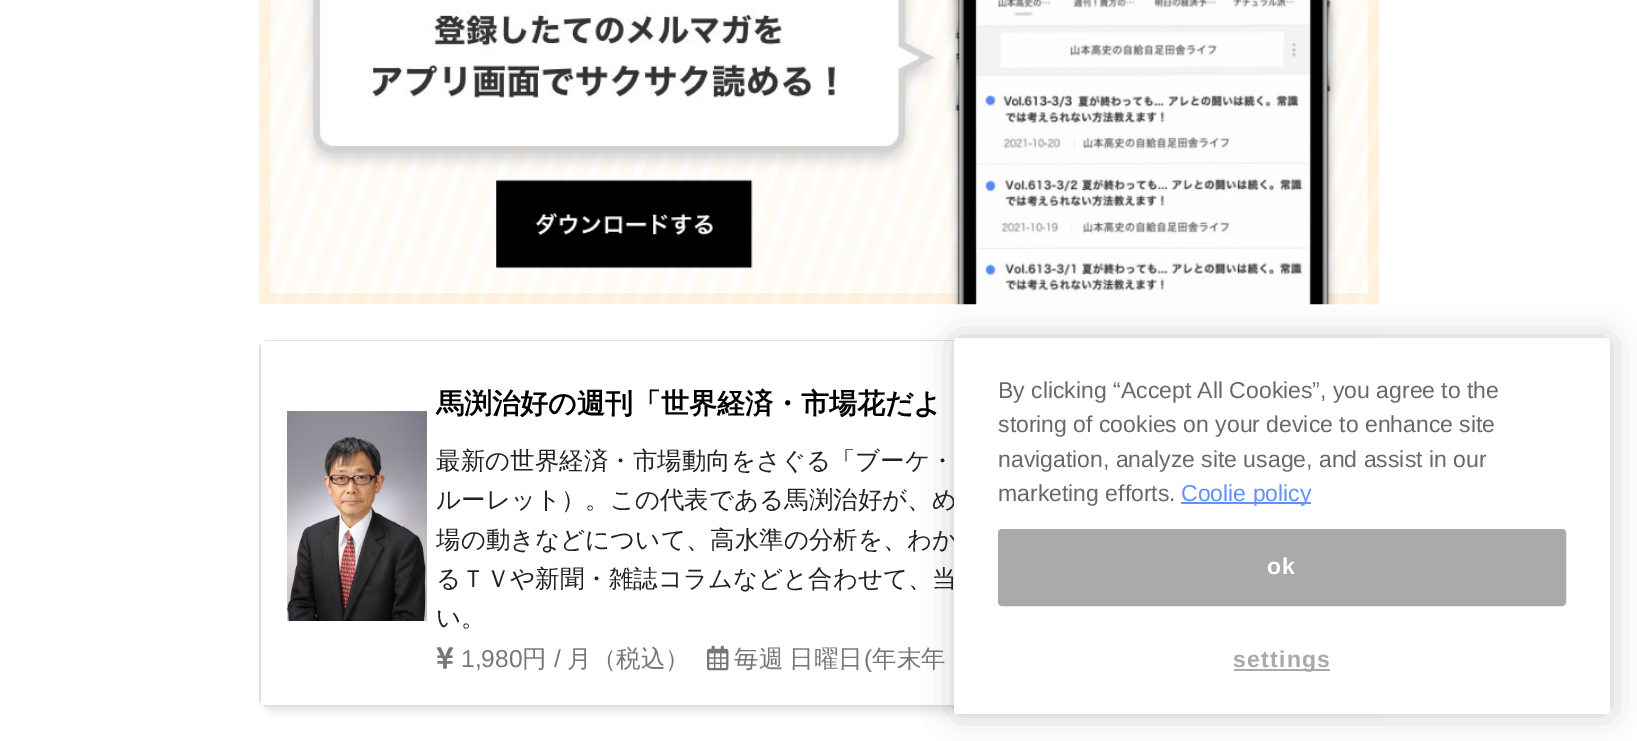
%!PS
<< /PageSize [1637 741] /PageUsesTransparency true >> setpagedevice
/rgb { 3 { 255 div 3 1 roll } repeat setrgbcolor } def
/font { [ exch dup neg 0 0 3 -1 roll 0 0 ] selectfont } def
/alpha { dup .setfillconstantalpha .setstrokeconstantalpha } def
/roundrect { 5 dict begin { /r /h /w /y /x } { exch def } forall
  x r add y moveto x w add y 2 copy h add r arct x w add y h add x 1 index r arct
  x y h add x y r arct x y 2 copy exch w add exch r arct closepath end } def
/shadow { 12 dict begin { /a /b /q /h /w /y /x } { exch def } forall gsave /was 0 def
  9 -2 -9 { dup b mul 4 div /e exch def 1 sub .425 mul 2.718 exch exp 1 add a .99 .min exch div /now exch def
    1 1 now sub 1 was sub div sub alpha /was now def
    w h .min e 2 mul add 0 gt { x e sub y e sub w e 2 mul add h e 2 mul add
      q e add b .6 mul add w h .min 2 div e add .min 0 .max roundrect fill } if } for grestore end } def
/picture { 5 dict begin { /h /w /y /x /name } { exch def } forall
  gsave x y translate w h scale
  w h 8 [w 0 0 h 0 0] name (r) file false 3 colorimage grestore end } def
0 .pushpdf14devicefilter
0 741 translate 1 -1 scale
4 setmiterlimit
255 255 255 rgb
0 0 1637 741 rectfill
(img/1.rgb) 259 0 1120 305 picture
0 0 0 rgb
264 345 1124 367 9 4.5 0.1 shadow
224 224 224 rgb
2 setlinewidth
260 341 1122 365 8 roundrect stroke
255 255 255 rgb
261 341 694 364 rectfill
(img/2.rgb) 287 411 140 210 picture
(img/3.rgb) 436 647 18 22 picture
(img/4.rgb) 707 645 22 26 picture
0 0 0 rgb
954 338 656 376 4 16 0.2 shadow
/WenQuanYiZenHei-Bold 28 font
436 413 moveto (馬渕治好の週刊「世界経済・市場花だよ) show
/WenQuanYiZenHei-Medium 24.5 font
34 34 34 rgb
[
  [(最新の世界経済・市場動向をさぐる「ブーケ・) 436 469]
  [(ルーレット）。この代表である馬渕治好が、め) 436 508]
  [(場の動きなどについて、高水準の分析を、わか) 436 548]
  [(るＴＶや新聞・雑誌コラムなどと合わせて、当) 436 587]
  [(い。) 436 626]
] { aload pop moveto show } forall
/LiberationSans-Regular 24.5 font
119 119 119 rgb
461 667 moveto (1,980) show
/WenQuanYiZenHei-Medium 24.5 font
522 667 moveto (円) show
/LiberationSans-Regular 24.5 font
554 667 moveto (/) show
/WenQuanYiZenHei-Medium 24.5 font
567 667 moveto (月（税込）) show
734 667 moveto -1 0 32 (毎週 日曜日) widthshow
/LiberationSans-Regular 24.5 font
864 667 moveto (\() show
/WenQuanYiZenHei-Medium 24.5 font
872 667 moveto (年末年) show
255 255 255 rgb
954 338 656 376 4 roundrect fill
/LiberationSans-Regular 23 font
105 105 105 rgb
[
  [(By clicking “Accept All Cookies”, you agree to the) 998 398]
  [(storing of cookies on your device to enhance site) 998 432]
  [(navigation, analyze site usage, and assist in our) 998 467]
  [(marketing efforts.) 998 501]
] { aload pop moveto show } forall
97 144 255 rgb
1181 502 130 2 rectfill
1181 501 moveto (Coolie policy) show
170 170 170 rgb
999 530 566 75 3 roundrect gsave fill grestore
stroke
/LiberationSans-Bold 23 font
255 255 255 rgb
1267 574 moveto 1.25 0 (ok) ashow
170 170 170 rgb
1234 669 96 2 rectfill
1233 667 moveto 1.25 0 (settings) ashow
.poppdf14devicefilter showpage
